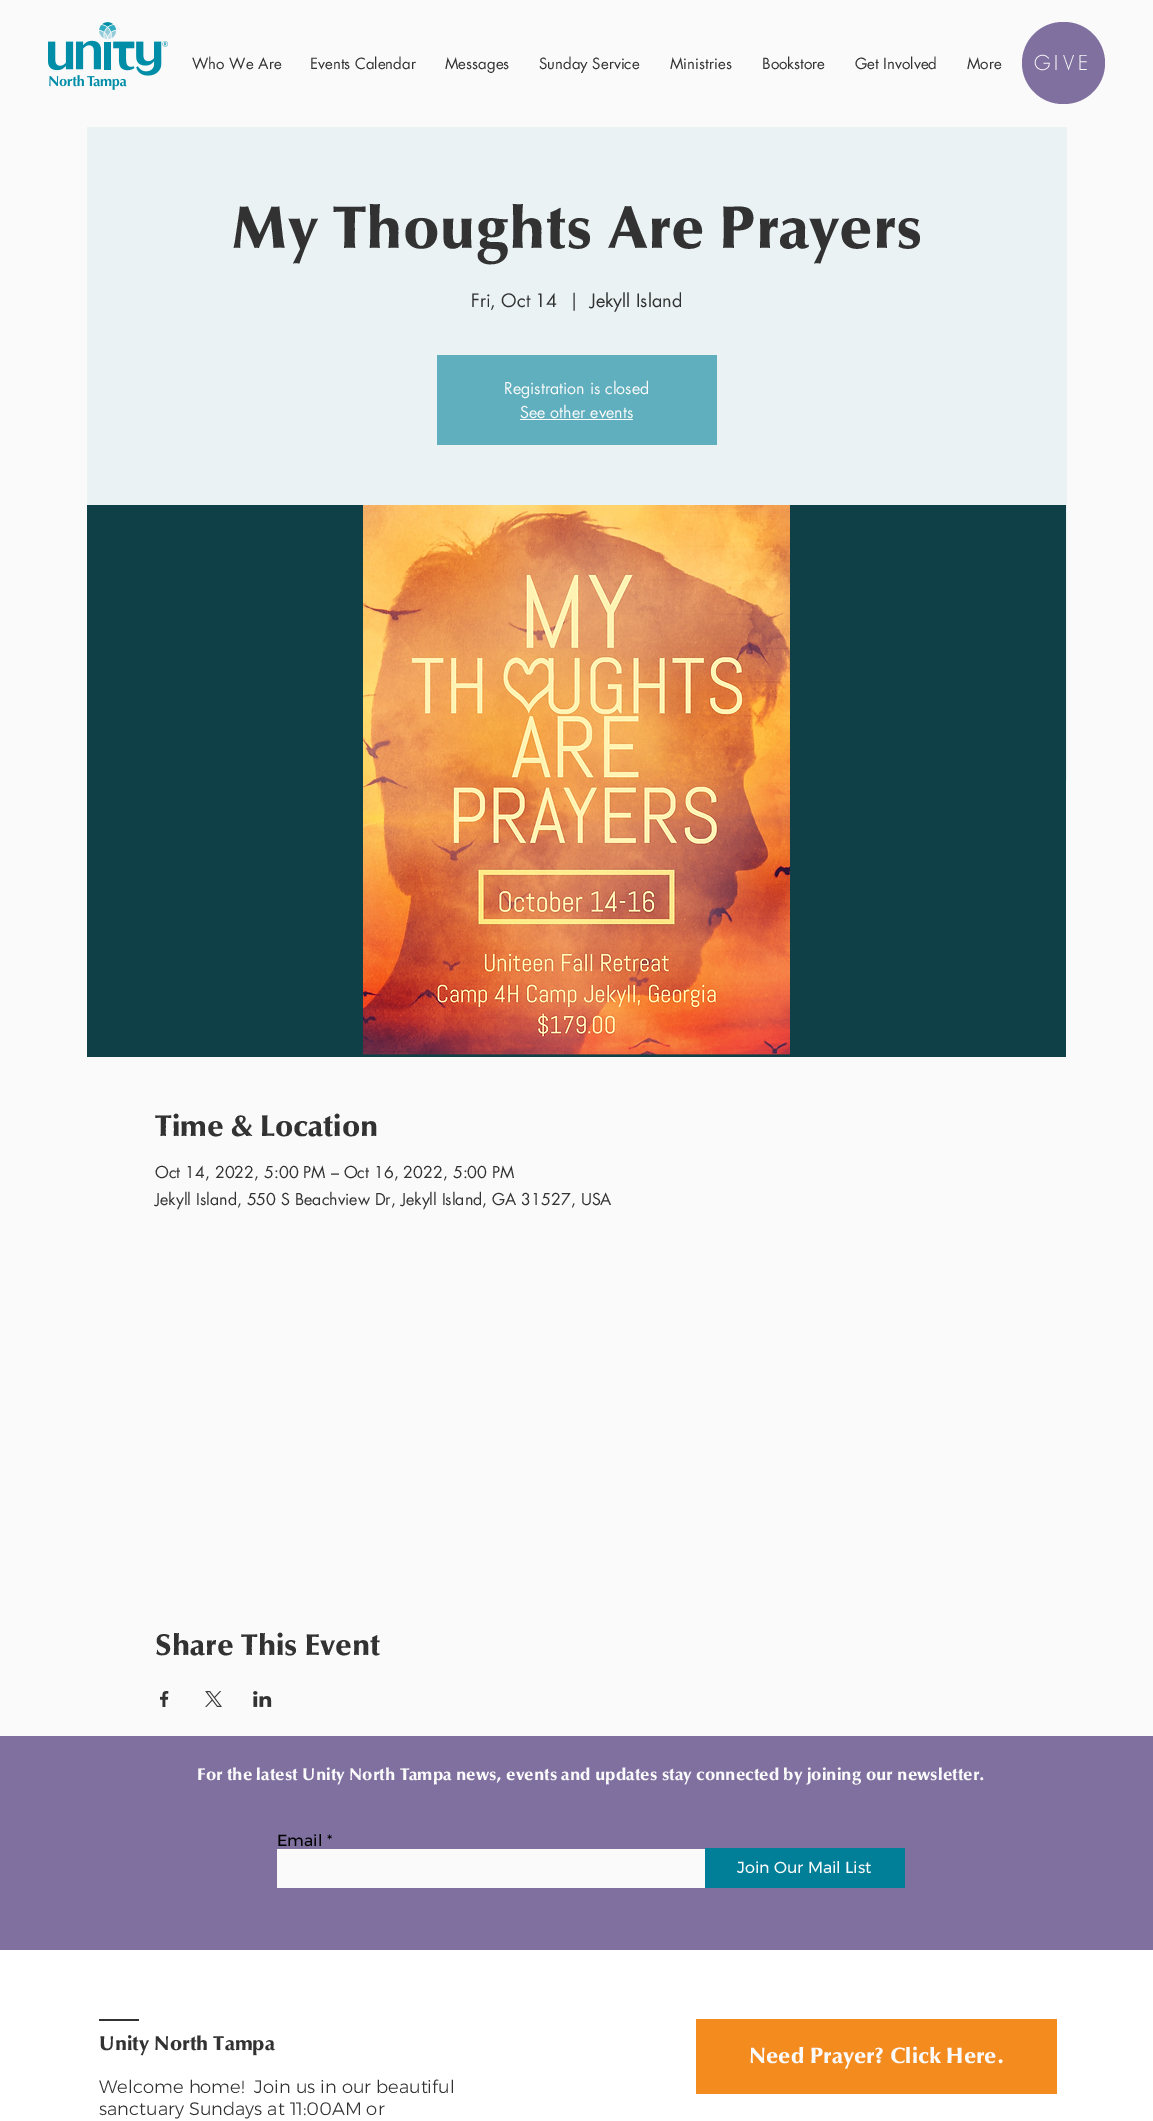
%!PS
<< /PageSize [1153 2121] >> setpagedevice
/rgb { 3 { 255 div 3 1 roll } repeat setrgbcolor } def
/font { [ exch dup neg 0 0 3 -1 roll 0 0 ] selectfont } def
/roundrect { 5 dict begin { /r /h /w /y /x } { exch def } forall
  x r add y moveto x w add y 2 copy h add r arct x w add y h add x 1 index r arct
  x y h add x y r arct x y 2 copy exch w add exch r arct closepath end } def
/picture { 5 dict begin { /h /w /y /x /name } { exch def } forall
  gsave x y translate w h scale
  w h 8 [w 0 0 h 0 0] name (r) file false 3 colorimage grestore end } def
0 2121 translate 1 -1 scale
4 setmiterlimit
250 250 250 rgb
0 0 1153 2121 rectfill
(img/1.rgb) 48 22 120 68 picture
127 112 159 rgb
1022 22 83 82 41 roundrect fill
[
  [87 127 980 654 234 242 244]
  [437 355 280 90 95 175 190]
  [520 419 113 1 250 250 250]
  [87 505 979 552 15 64 71]
] { aload pop rgb rectfill } forall
(img/2.rgb) 363 505 427 550 picture
(img/3.rgb) 160 1691 9 16 picture
(img/4.rgb) 205 1691 17 16 picture
(img/5.rgb) 253 1691 19 16 picture
[
  [0 1736 1153 214 127 112 159]
  [277 1849 428 39 250 250 250]
  [705 1848 200 40 1 127 152]
  [0 1950 1153 171 255 255 255]
  [99 2019 40 2 50 50 50]
  [696 2019 361 75 244 139 31]
] { aload pop rgb rectfill } forall
/futura-Regular 15 font
50 50 50 rgb
[
  [(Who We Are) 192 69]
  [(Events Calendar) 310 69]
  [(Messages) 445 69]
  [(Sunday Service) 539 69]
  [(Ministries) 670 69]
  [(Bookstore) 762 69]
  [(Get Involved) 855 69]
  [(More) 967 69]
] { aload pop moveto show } forall
/futura-Light 20 font
250 250 250 rgb
1034 70 moveto 4 0 (GIVE) ashow
/Optima-Black 60 font
50 50 50 rgb
231 248 moveto (My Thoughts Are Prayers) show
/futura-Regular 18 font
[
  [(Fri, Oct 14) 471 307]
  [(|) 569 307]
  [(Jekyll Island) 590 307]
] { aload pop moveto show } forall
/futura-Regular 16 font
250 250 250 rgb
504 394 moveto (Registration is closed) show
520 418 moveto (See other events) show
/Optima-Black 30 font
50 50 50 rgb
155 1136 moveto (Time & Location) show
/futura-Regular 16 font
155 1178 moveto (Oct 14, 2022, 5:00 PM – Oct 16, 2022, 5:00 PM) show
155 1205 moveto (Jekyll Island, 550 S Beachview Dr, Jekyll Island, GA 31527, USA) show
/Optima-Black 30 font
155 1655 moveto (Share This Event) show
/Optima-Black 17 font
250 250 250 rgb
197 1780 moveto (For the latest Unity North Tampa news, events and updates stay connected by joining our newsletter.) show
/Montserrat-Regular 16 font
0 0 0 rgb
277 1846 moveto (Email *) show
250 250 250 rgb
737 1873 moveto (Join Our Mail List) show
/Optima-Black 20 font
50 50 50 rgb
99 2050 moveto (Unity North Tampa) show
/Optima-Black 22 font
250 250 250 rgb
749 2063 moveto (Need Prayer? Click Here.) show
/Montserrat-Light 18 font
50 50 50 rgb
99 2093 moveto (Welcome home!  Join us in our beautiful) show
99 2115 moveto (sanctuary Sundays at 11:00AM or) show
showpage
